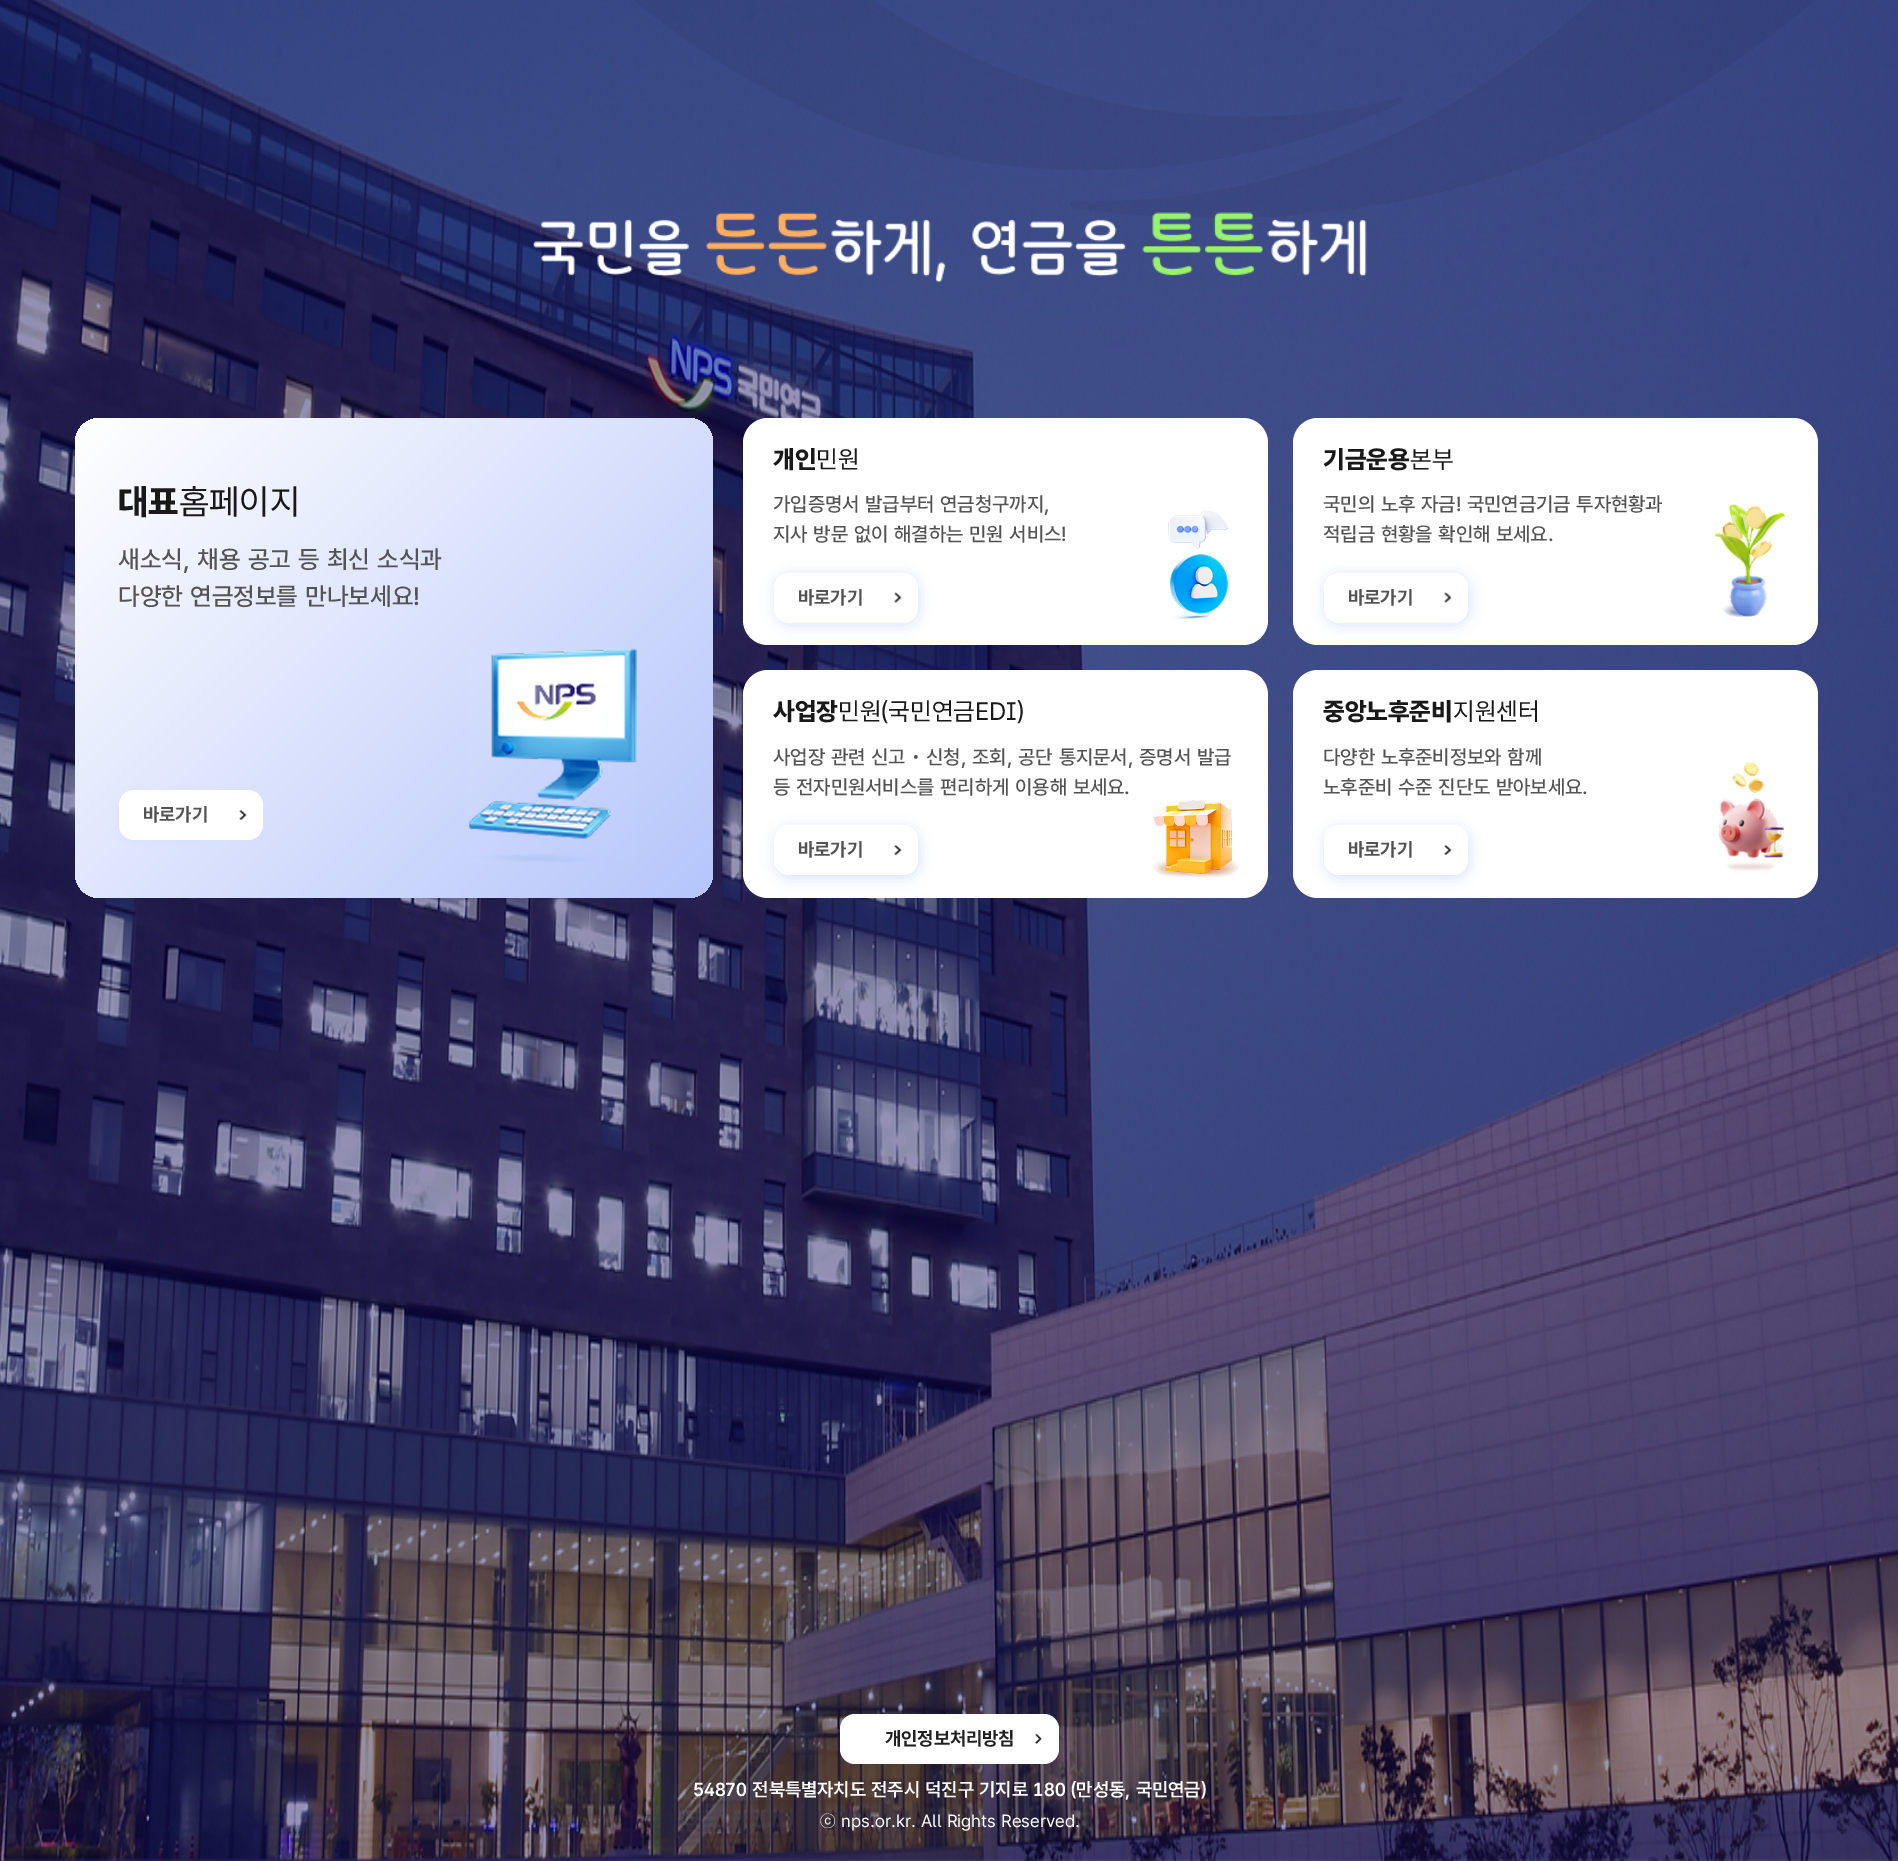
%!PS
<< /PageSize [1898 1861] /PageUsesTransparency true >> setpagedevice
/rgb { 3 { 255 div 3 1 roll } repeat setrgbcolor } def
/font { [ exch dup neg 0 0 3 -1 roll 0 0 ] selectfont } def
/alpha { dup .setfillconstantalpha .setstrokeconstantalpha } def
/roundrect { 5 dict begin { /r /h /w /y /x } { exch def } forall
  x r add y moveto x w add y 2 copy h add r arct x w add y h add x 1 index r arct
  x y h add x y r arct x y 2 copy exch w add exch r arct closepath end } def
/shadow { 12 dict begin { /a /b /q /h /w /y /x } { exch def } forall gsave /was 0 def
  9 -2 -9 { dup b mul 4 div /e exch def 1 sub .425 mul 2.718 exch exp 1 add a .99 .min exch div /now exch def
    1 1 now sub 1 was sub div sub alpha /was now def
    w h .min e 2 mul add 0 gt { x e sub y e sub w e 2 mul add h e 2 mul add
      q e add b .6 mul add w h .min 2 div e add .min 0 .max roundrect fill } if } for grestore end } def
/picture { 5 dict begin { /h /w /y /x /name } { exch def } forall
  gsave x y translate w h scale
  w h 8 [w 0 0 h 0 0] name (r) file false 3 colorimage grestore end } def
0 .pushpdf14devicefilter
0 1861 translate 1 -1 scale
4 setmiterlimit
255 255 255 rgb
0 0 1898 1861 rectfill
(img/1.rgb) 0 0 1898 1861 picture
(img/2.rgb) 634 0 1181 218 picture
(img/3.rgb) 533 212 413 71 picture
(img/4.rgb) 972 212 395 65 picture
gsave 75 418 638 480 25 roundrect clip newpath
<< /ShadingType 2 /ColorSpace /DeviceRGB /Coords [114 378 673 937] /Extend [true true] /Function << /FunctionType 2 /Domain [0 1] /C0 [1 1 1] /C1 [0.714 0.776 0.984] /N 1 >> >> shfill grestore
215 224 255 rgb
120 793 144 50 15 7 1 shadow
255 255 255 rgb
119 790 144 50 15 roundrect fill
(img/5.rgb) 239 810 8 10 picture
(img/6.rgb) 468 648 169 214 picture
743 418 525 227 25 roundrect fill
215 224 255 rgb
775 575 144 50 15 7 1 shadow
255 255 255 rgb
774 573 144 50 15 roundrect fill
(img/7.rgb) 894 592 8 11 picture
(img/8.rgb) 1168 510 60 110 picture
1293 418 525 227 25 roundrect fill
215 224 255 rgb
1325 575 144 50 15 7 1 shadow
255 255 255 rgb
1324 573 144 50 15 roundrect fill
(img/7.rgb) 1444 592 8 11 picture
(img/9.rgb) 1714 503 72 114 picture
743 670 525 228 25 roundrect fill
215 224 255 rgb
775 828 144 50 15 7 1 shadow
255 255 255 rgb
774 825 144 50 15 roundrect fill
(img/10.rgb) 894 845 8 10 picture
(img/11.rgb) 1153 800 87 78 picture
1293 670 525 228 25 roundrect fill
215 224 255 rgb
1325 828 144 50 15 7 1 shadow
255 255 255 rgb
1324 825 144 50 15 roundrect fill
(img/10.rgb) 1444 845 8 10 picture
(img/12.rgb) 1718 761 66 110 picture
840 1714 219 50 15 roundrect fill
(img/13.rgb) 1035 1733 7 11 picture
/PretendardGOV-ExtraBold 35 font
25 25 25 rgb
118 514 moveto (대표) show
/PretendardGOV-Regular 35 font
179 514 moveto (홈페이지) show
/PretendardGOV-Medium 25 font
83 83 83 rgb
118 568 moveto (새소식, 채용 공고 등 최신 소식과) show
118 605 moveto (다양한 연금정보를 만나보세요!) show
/PretendardGOV-Bold 18.75 font
143 821 moveto (바로가기) show
/PretendardGOV-ExtraBold 25 font
25 25 25 rgb
773 468 moveto (개인) show
/PretendardGOV-Regular 25 font
816 468 moveto (민원) show
/PretendardGOV-Medium 20 font
83 83 83 rgb
773 511 moveto (가입증명서 발급부터 연금청구까지,) show
773 541 moveto (지사 방문 없이 해결하는 민원 서비스!) show
/PretendardGOV-Bold 18.75 font
798 604 moveto (바로가기) show
/PretendardGOV-ExtraBold 25 font
25 25 25 rgb
1323 468 moveto (기금운용) show
/PretendardGOV-Regular 25 font
1410 468 moveto (본부) show
/PretendardGOV-Medium 20 font
83 83 83 rgb
1323 511 moveto (국민의 노후 자금! 국민연금기금 투자현황과) show
1323 541 moveto (적립금 현황을 확인해 보세요.) show
/PretendardGOV-Bold 18.75 font
1348 604 moveto (바로가기) show
/PretendardGOV-ExtraBold 25 font
25 25 25 rgb
773 720 moveto (사업장) show
/PretendardGOV-Regular 25 font
838 720 moveto (민원\(국민연금EDI\)) show
/PretendardGOV-Medium 20 font
83 83 83 rgb
773 764 moveto (사업장 관련 신고) show
/Dotum-Regular 20 font
906 764 moveto (ㆍ) show
/PretendardGOV-Medium 20 font
926 764 moveto (신청, 조회, 공단 통지문서, 증명서 발급) show
773 794 moveto (등 전자민원서비스를 편리하게 이용해 보세요.) show
/PretendardGOV-Bold 18.75 font
798 856 moveto (바로가기) show
/PretendardGOV-ExtraBold 25 font
25 25 25 rgb
1323 720 moveto (중앙노후준비) show
/PretendardGOV-Regular 25 font
1453 720 moveto (지원센터) show
/PretendardGOV-Medium 20 font
83 83 83 rgb
1323 764 moveto (다양한 노후준비정보와 함께) show
1323 794 moveto (노후준비 수준 진단도 받아보세요.) show
/PretendardGOV-Bold 18.75 font
1348 856 moveto (바로가기) show
34 34 34 rgb
885 1745 moveto (개인정보처리방침) show
/PretendardGOV-SemiBold 18.75 font
255 255 255 rgb
693 1796 moveto (54870 전북특별자치도 전주시 덕진구 기지로 180 \(만성동, 국민연금\)) show
/Dotum-Regular 17.5 font
819 1827 moveto (ⓒ) show
/PretendardGOV-Regular 17.5 font
841 1827 moveto (nps.or.kr. All Rights Reserved.) show
.poppdf14devicefilter showpage
